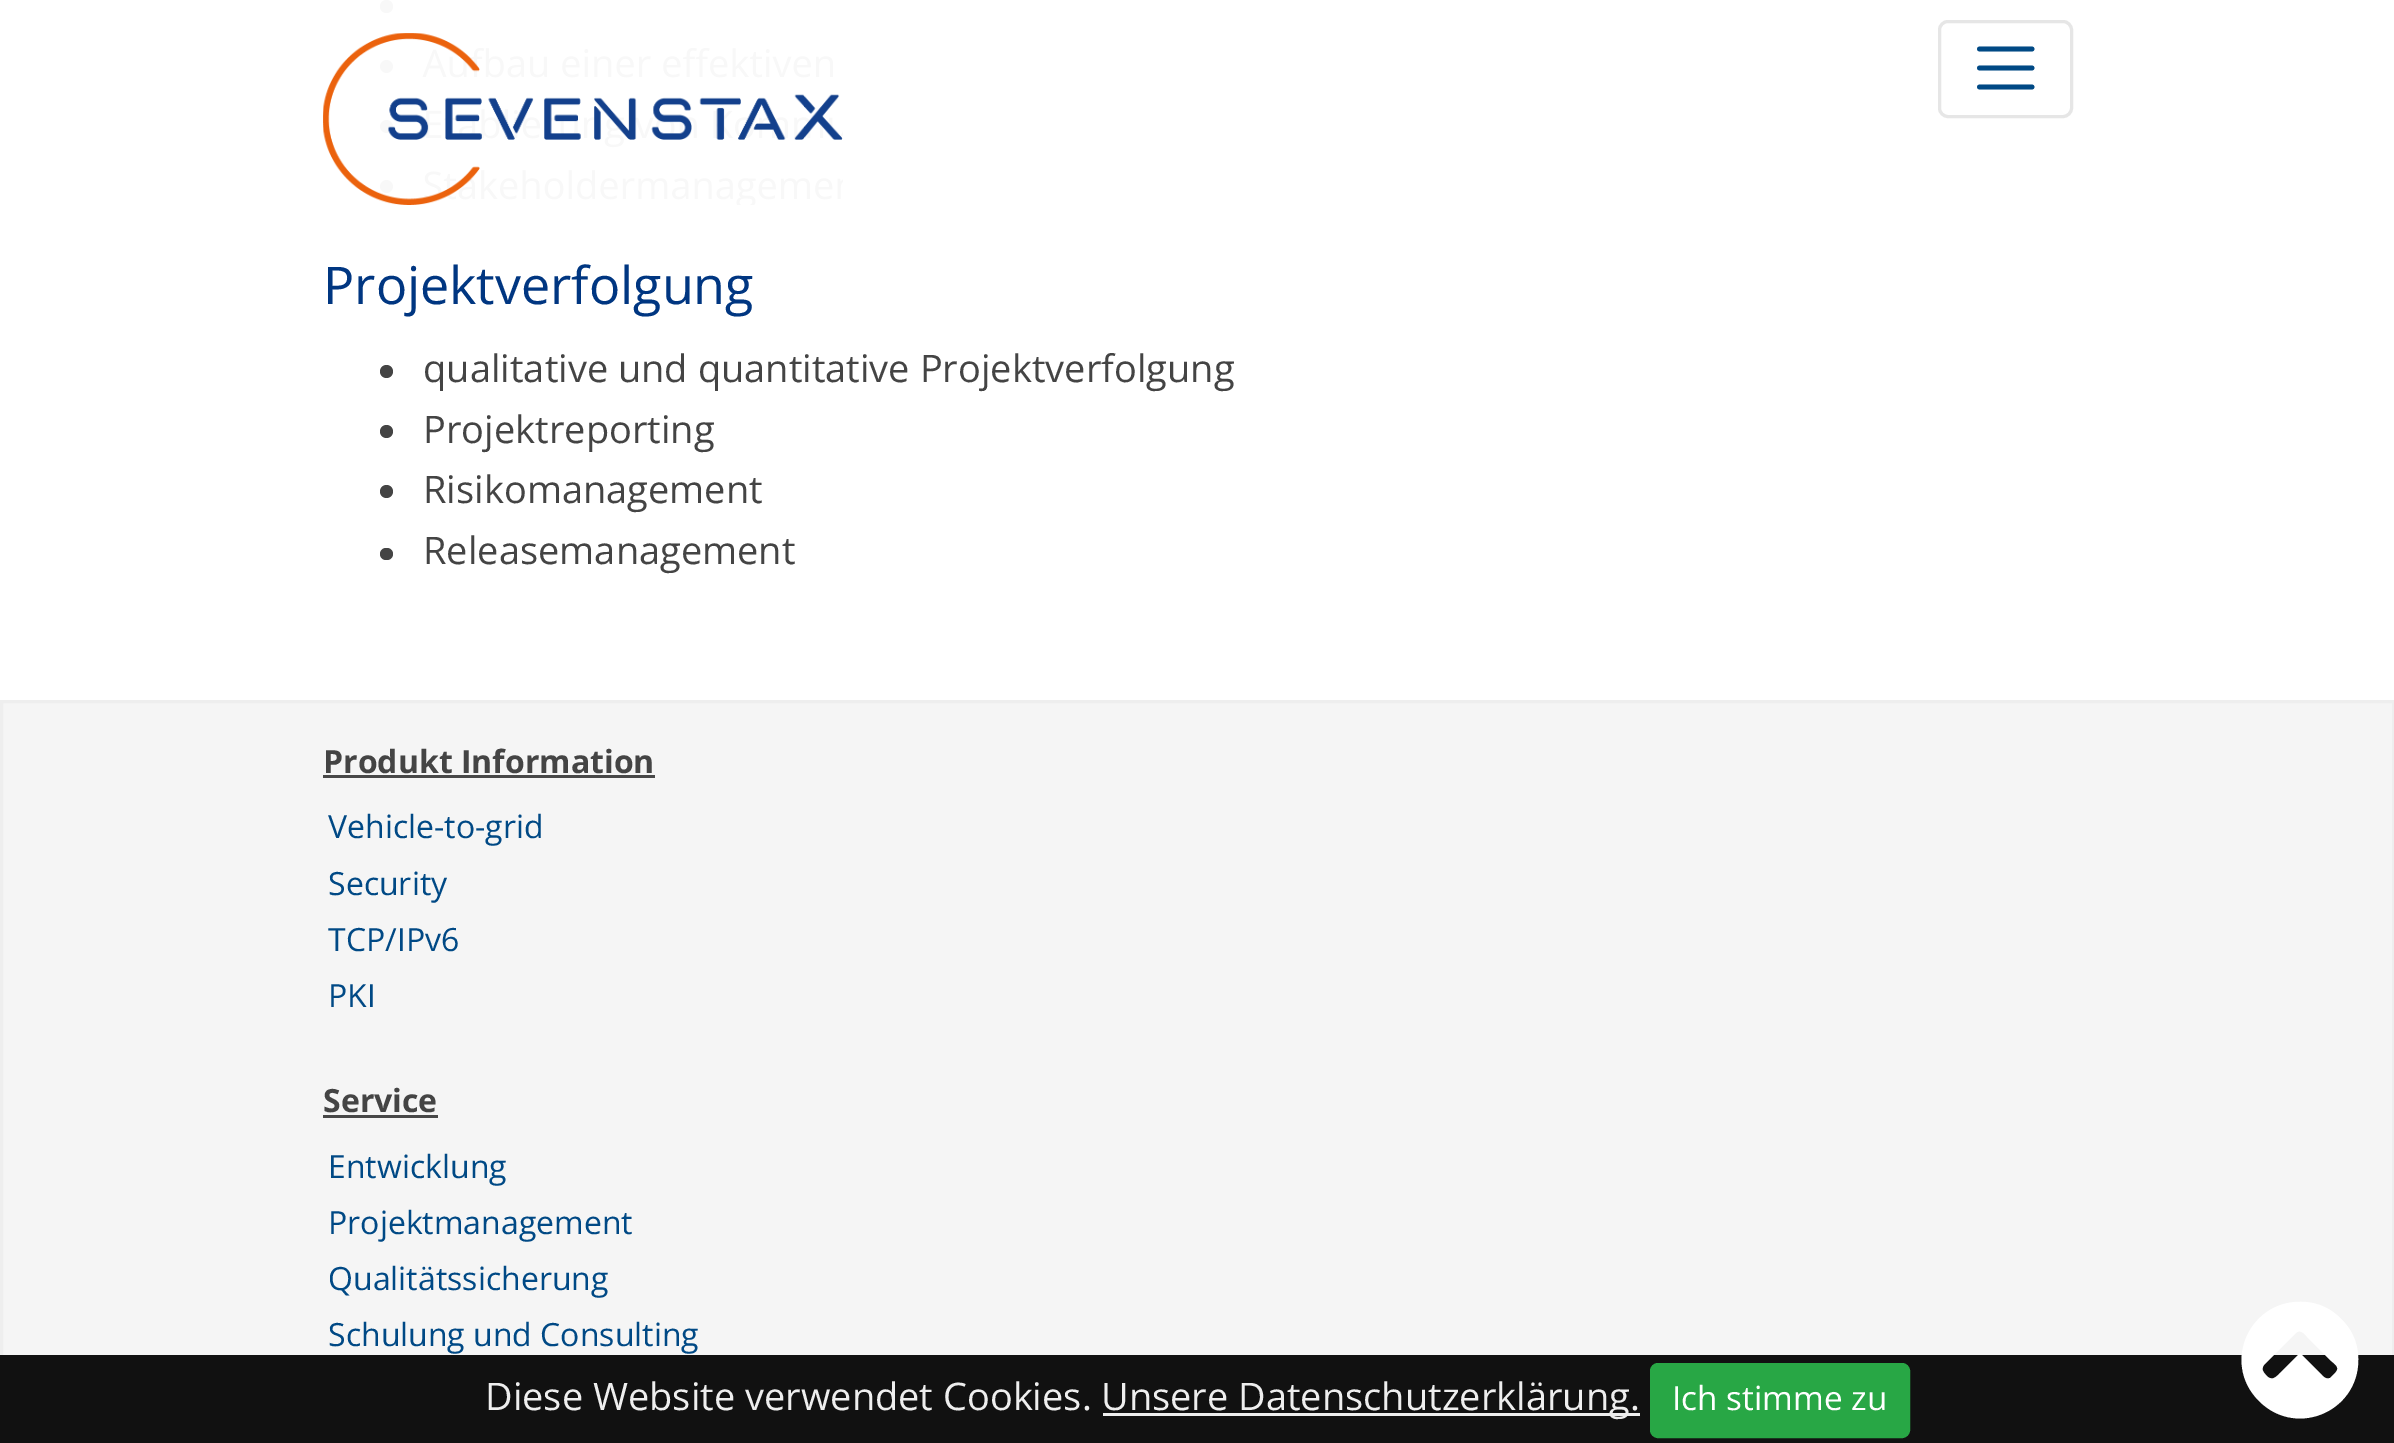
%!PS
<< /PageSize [2394 1443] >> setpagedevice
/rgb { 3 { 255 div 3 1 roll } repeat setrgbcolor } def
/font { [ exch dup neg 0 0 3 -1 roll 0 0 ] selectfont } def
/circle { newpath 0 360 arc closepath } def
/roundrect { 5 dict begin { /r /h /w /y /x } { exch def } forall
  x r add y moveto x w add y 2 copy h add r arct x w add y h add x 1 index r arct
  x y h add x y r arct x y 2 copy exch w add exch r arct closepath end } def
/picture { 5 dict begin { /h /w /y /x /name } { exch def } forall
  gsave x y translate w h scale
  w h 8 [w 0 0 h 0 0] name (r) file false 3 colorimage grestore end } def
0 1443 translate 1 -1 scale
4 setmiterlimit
255 255 255 rgb
0 0 2394 1443 rectfill
248 248 248 rgb
386.5 66.5 6.5 circle fill
386.5 126.5 6.5 circle fill
386.5 186.5 6.5 circle fill
(img/1.rgb) 323 33 520 172 picture
230 230 230 rgb
3 setlinewidth
1939.5 21.5 132 95 8.5 roundrect stroke
0 73 133 rgb
4.8 setlinewidth
1 setlinecap
1979.5 49 moveto 2032 49 lineto 1979.5 68 moveto 2032 68 lineto 1979.5 87 moveto 2032 87 lineto stroke
248 248 248 rgb
386.5 6.5 6.5 circle fill
68 68 68 rgb
386.5 371.5 6.5 circle fill
386.5 431.5 6.5 circle fill
386.5 491.5 6.5 circle fill
380 548 13 12 6 roundrect fill
245 245 245 rgb
3 703 2389 652 rectfill
238 238 238 rgb
3 setlinewidth
0 setlinecap
1.5 701.5 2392 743 rectstroke
[
  [323 775 332 3 72 72 72]
  [323 1115 115 3 72 72 72]
  [0 1355 2394 88 17 17 17]
  [1103 1413 537 3 238 238 238]
] { aload pop rgb rectfill } forall
40 167 69 rgb
1651.5 1364.5 257 72 6.5 roundrect gsave fill grestore
stroke
255 255 255 rgb
2259 1401 moveto 2220 1362 2251 1297 2306 1302 curveto 2319 1303 2332 1309 2341 1319 curveto 2351 1328 2357 1341 2358 1354 curveto 2363 1409 2298 1440 2259 1401 curveto closepath 2296 1333 moveto 2264 1365 lineto 2260 1370 2265 1374 2268 1377 curveto 2273 1381 2277 1376 2280 1373 curveto 2300 1353 lineto 2320 1373 lineto 2322 1375 2325 1380 2330 1378 curveto 2334 1374 lineto 2341 1368 2336 1365 2330 1360 curveto 2309 1339 lineto 2306 1336 2301 1328 2296 1333 curveto closepath fill
/OpenSans-Regular 52 font
0 54 129 rgb
323 304 moveto (Projektverfolgung) show
/OpenSans-Regular 38 font
68 68 68 rgb
[
  [(qualitative und quantitative Projektverfolgung) 423 382]
  [(Projektreporting) 423 443]
  [(Risikomanagement) 423 503]
  [(Releasemanagement) 423 564]
] { aload pop moveto show } forall
/OpenSans-Bold 32 font
323 773 moveto (Produkt Information) show
/OpenSans-Regular 32 font
0 73 133 rgb
[
  [(Vehicle-to-grid) 328 838]
  [(Security) 328 895]
  [(TCP/IPv6) 328 951]
  [(PKI) 328 1007]
] { aload pop moveto show } forall
/OpenSans-Bold 32 font
68 68 68 rgb
323 1112 moveto (Service) show
/OpenSans-Regular 32 font
0 73 133 rgb
[
  [(Entwicklung) 328 1178]
  [(Projektmanagement) 328 1234]
  [(Qualitätssicherung) 328 1290]
  [(Schulung und Consulting) 328 1346]
] { aload pop moveto show } forall
/OpenSans-Regular 38 font
238 238 238 rgb
485 1410 moveto (Diese Website verwendet Cookies.) show
1101 1410 moveto (Unsere Datenschutzerklärung.) show
/OpenSans-Regular 33.25 font
255 255 255 rgb
1672 1410 moveto (Ich stimme zu) show
showpage
